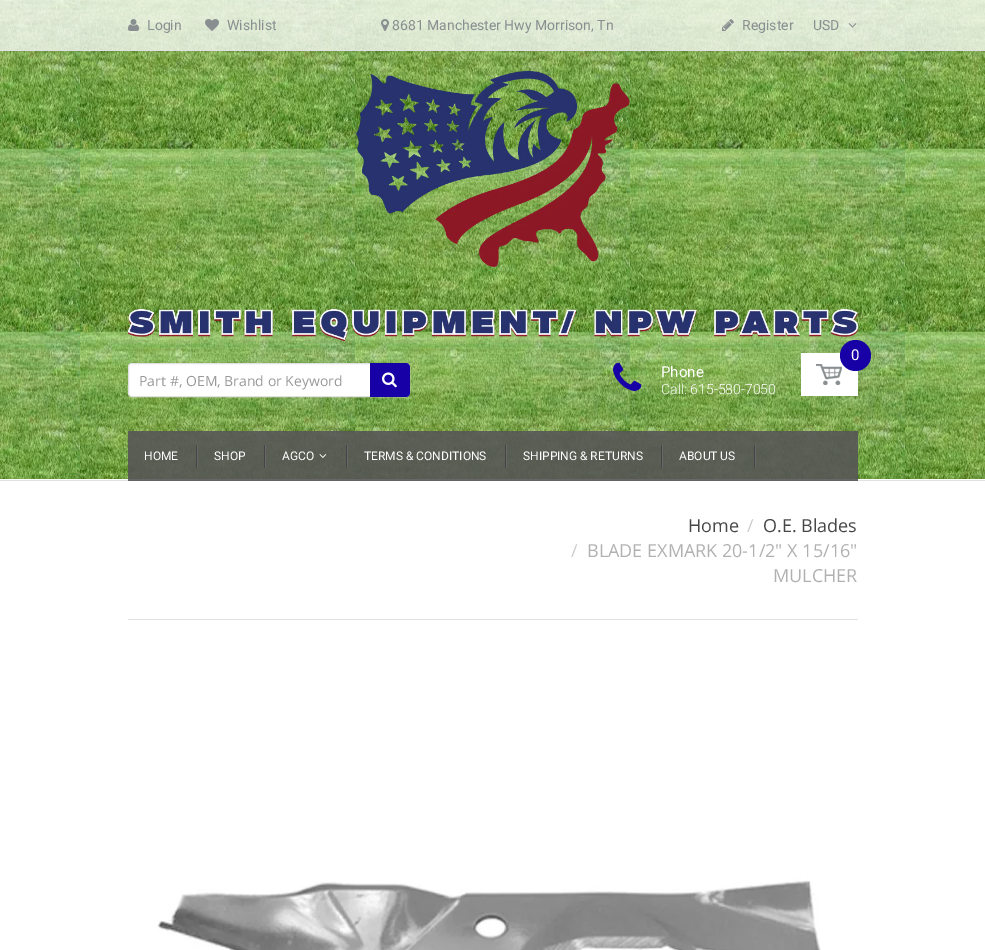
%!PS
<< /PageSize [985 950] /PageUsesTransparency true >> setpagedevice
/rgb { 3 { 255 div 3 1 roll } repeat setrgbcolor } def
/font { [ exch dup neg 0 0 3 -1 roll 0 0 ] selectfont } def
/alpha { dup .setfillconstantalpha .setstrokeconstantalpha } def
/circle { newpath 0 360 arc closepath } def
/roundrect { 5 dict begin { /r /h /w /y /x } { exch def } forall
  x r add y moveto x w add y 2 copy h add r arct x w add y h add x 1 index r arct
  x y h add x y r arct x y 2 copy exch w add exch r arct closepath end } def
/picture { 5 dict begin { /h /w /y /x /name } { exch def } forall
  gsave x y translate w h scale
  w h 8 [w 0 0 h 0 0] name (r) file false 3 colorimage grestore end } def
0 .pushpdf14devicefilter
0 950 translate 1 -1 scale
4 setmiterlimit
255 255 255 rgb
0 0 985 950 rectfill
(img/1.rgb) 0 0 985 479 picture
[
  [0 480 985 1 225 225 225]
] { aload pop rgb rectfill } forall
0.75 alpha
[
  [0 0 985 50 255 255 255]
] { aload pop rgb rectfill } forall
1 alpha
[
  [0 50 985 1 225 225 225]
] { aload pop rgb rectfill } forall
(img/2.rgb) 128 19 11 12 picture
(img/3.rgb) 205 19 14 12 picture
(img/4.rgb) 381 19 8 12 picture
(img/5.rgb) 722 19 12 12 picture
(img/6.rgb) 848 23 9 5 picture
(img/7.rgb) 128 71 730 270 picture
255 255 255 rgb
801 353 57 43 rectfill
(img/8.rgb) 816 364 26 21 picture
23 0 166 rgb
855.5 355.5 15.5 circle fill
255 255 255 rgb
128.5 363.5 281 33 3.5 roundrect gsave fill grestore
225 225 225 rgb
stroke
23 0 166 rgb
370 363 moveto 406 363 lineto 408 363 410 365 410 367 curveto 410 393 lineto 410 395 408 397 406 397 curveto 370 397 lineto closepath fill
(img/9.rgb) 382 372 15 16 picture
(img/10.rgb) 613 362 29 29 picture
0.9 alpha
[
  [128 431 730 50 86 86 86]
] { aload pop rgb rectfill } forall
1 alpha
[
  [196 445 1 23 69 69 69]
  [197 445 1 23 103 103 103]
  [264 445 1 23 69 69 69]
  [265 445 1 23 103 103 103]
] { aload pop rgb rectfill } forall
(img/11.rgb) 319 454 8 4 picture
[
  [346 445 1 23 69 69 69]
  [347 445 1 23 103 103 103]
  [505 445 1 23 69 69 69]
  [506 445 1 23 103 103 103]
  [661 445 1 23 69 69 69]
  [662 445 1 23 103 103 103]
  [754 445 1 23 69 69 69]
  [755 445 1 23 103 103 103]
  [128 619 730 1 225 225 225]
] { aload pop rgb rectfill } forall
(img/12.rgb) 157 878 664 72 picture
/Roboto-Regular 14 font
137 142 145 rgb
[
  [(Login) 147 30]
  [(Wishlist) 227 30]
  [(8681 Manchester Hwy Morrison, Tn) 392 30]
  [(Register) 742 30]
  [(USD) 813 30]
] { aload pop moveto show } forall
/Roboto-Regular 15 font
255 255 255 rgb
851 360 moveto (0) show
/OpenSans-Regular 14 font
153 153 153 rgb
139 386 moveto (Part #, OEM, Brand or Keyword) show
/Roboto-Regular 15 font
255 255 255 rgb
661 377 moveto (Phone) show
/Roboto-Light 14 font
661 394 moveto (Call: 615-580-7050) show
/Roboto-Regular 12 font
[
  [(HOME) 144 460]
  [(SHOP) 214 460]
  [(AGCO) 282 460]
  [(TERMS & CONDITIONS) 364 460]
  [(SHIPPING & RETURNS) 523 460]
  [(ABOUT US) 679 460]
] { aload pop moveto show } forall
/OpenSans-Regular 18 font
72 71 71 rgb
688 532 moveto (Home) show
204 204 204 rgb
747 532 moveto (/) show
72 71 71 rgb
763 532 moveto (O.E. Blades) show
204 204 204 rgb
571 557 moveto (/) show
177 177 177 rgb
587 557 moveto (BLADE EXMARK 20-1/2" X 15/16") show
773 582 moveto (MULCHER) show
.poppdf14devicefilter showpage
